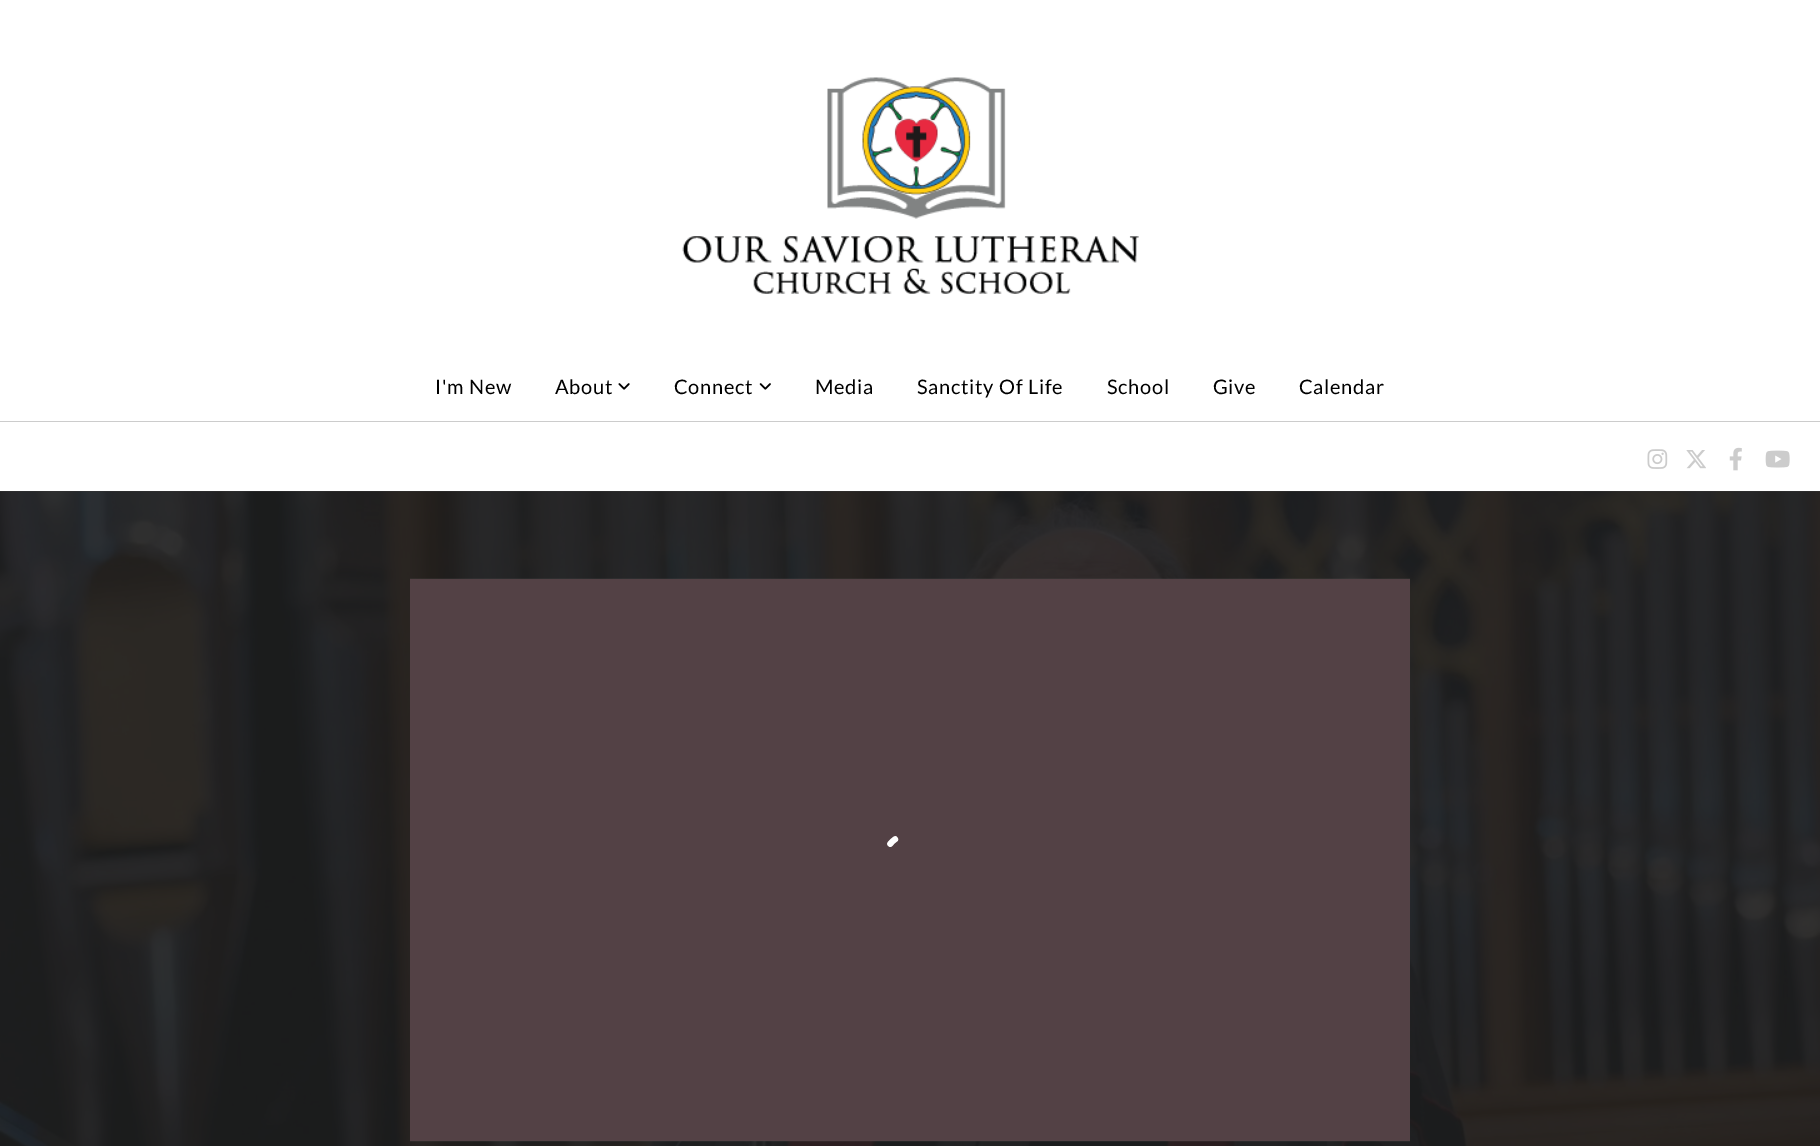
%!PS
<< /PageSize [1820 1146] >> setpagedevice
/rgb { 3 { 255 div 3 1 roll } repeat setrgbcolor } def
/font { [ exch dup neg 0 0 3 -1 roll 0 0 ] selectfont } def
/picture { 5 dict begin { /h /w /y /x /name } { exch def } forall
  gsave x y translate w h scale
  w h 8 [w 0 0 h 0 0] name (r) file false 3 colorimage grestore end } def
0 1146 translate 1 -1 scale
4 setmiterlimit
52 52 52 rgb
0 0 1820 1146 rectfill
255 255 255 rgb
0 0 1820 491 rectfill
(img/1.rgb) 682 77 457 217 picture
(img/2.rgb) 618 383 12 7 picture
(img/3.rgb) 759 383 12 7 picture
204 204 204 rgb
0 421 1820 1 rectfill
(img/4.rgb) 1647 449 21 20 picture
(img/5.rgb) 1686 450 20 19 picture
(img/6.rgb) 1729 447 13 24 picture
(img/7.rgb) 1765 450 25 18 picture
(img/8.rgb) 0 491 1820 655 picture
(img/9.rgb) 410 578 1000 564 picture
/Lato-Regular 20 font
0 0 0 rgb
435 394 moveto 0.75 0 (I'm New) ashow
555 394 moveto 0.75 0 (About) ashow
674 394 moveto 0.75 0 (Connect) ashow
815 394 moveto 0.75 0 (Media) ashow
917 394 moveto 0.75 0 (Sanctity Of Life) ashow
1107 394 moveto 0.75 0 (School) ashow
1213 394 moveto 0.75 0 (Give) ashow
1299 394 moveto 0.75 0 (Calendar) ashow
showpage
